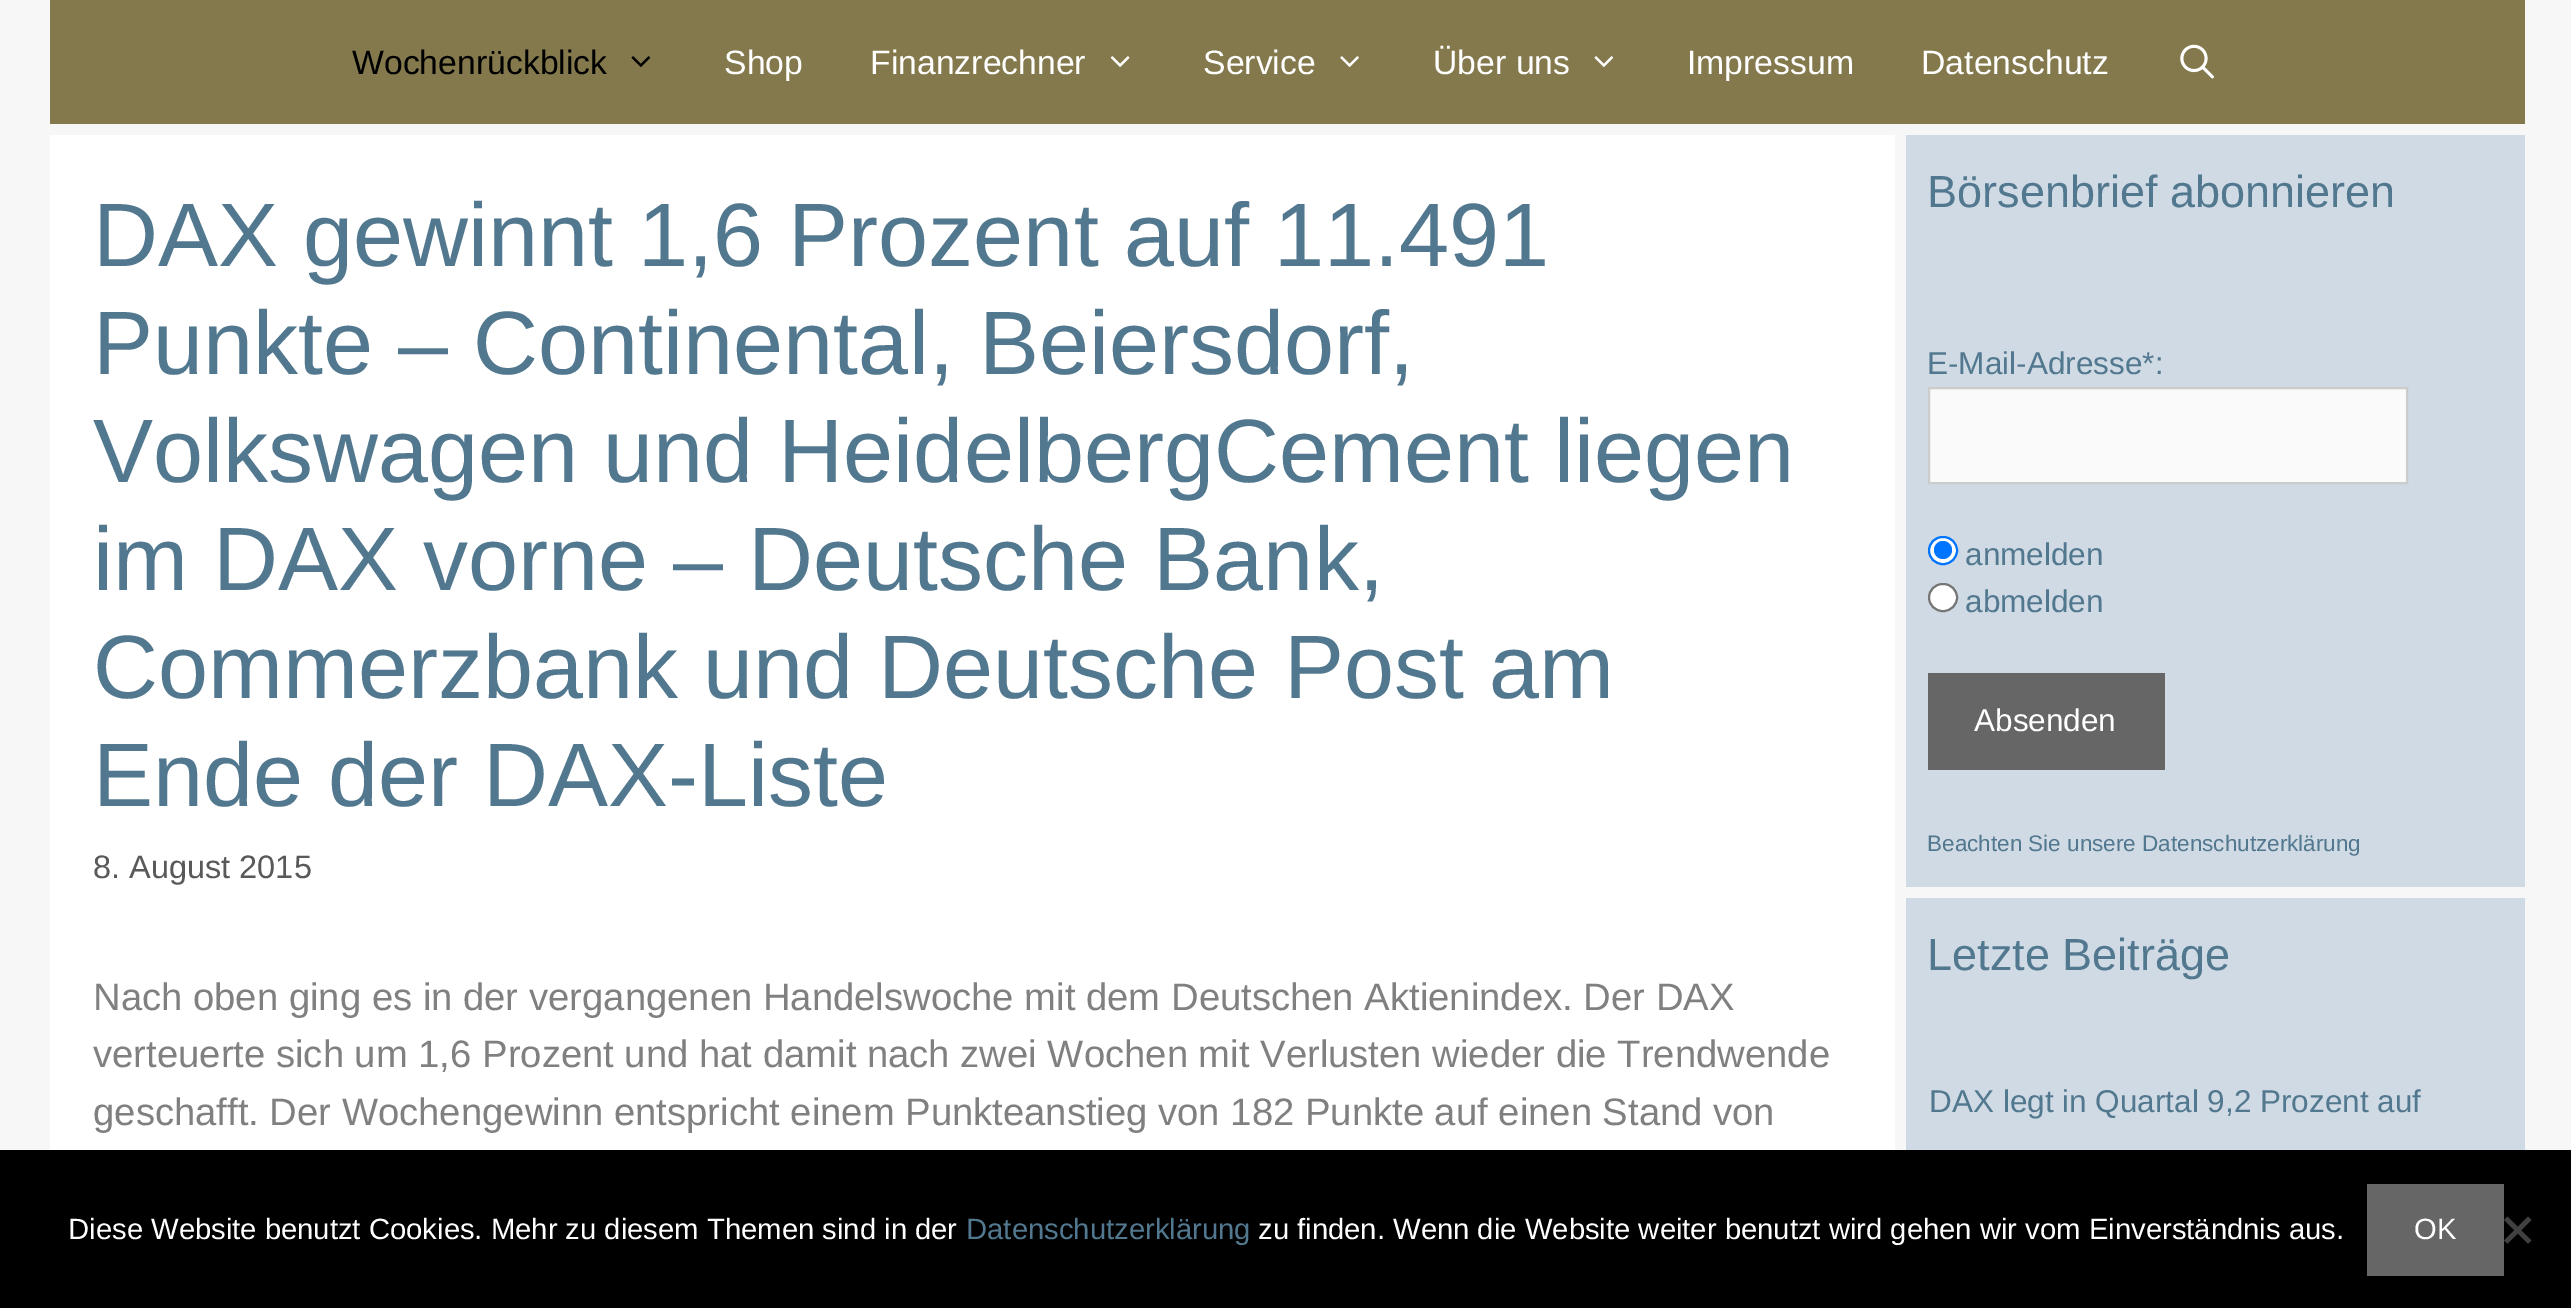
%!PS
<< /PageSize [2571 1308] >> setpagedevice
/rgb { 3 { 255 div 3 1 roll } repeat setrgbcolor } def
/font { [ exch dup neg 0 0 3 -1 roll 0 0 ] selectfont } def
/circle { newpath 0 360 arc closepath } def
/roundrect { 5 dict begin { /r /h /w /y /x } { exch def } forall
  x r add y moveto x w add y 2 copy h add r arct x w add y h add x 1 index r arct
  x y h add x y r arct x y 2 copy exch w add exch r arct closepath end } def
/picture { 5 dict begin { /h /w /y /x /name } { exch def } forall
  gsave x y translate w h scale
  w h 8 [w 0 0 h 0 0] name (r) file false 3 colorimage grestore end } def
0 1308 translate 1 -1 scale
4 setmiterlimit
247 247 247 rgb
0 0 2571 1308 rectfill
132 121 76 rgb
50 0 2475 124 rectfill
(img/1.rgb) 631 56 20 11 picture
(img/2.rgb) 1110 56 20 11 picture
(img/3.rgb) 1340 56 19 11 picture
(img/4.rgb) 1594 56 20 11 picture
(img/5.rgb) 2180 44 34 35 picture
255 255 255 rgb
50 135 1845 1015 rectfill
208 218 228 rgb
1906 135 619 752 rectfill
250 250 250 rgb
1929 388 moveto 2407 388 lineto 2407 483 lineto 1929 483 lineto closepath gsave fill grestore
204 204 204 rgb
2 setlinewidth
stroke
255 255 255 rgb
1929 537 28 27 13.5 roundrect gsave fill grestore
0 117 255 rgb
stroke
1943 550 9 circle fill
255 255 255 rgb
1929 584 28 27 13.5 roundrect gsave fill grestore
118 118 118 rgb
stroke
[
  [1928 673 237 97 102 102 102]
  [1906 898 619 252 208 218 228]
  [0 1150 2571 158 0 0 0]
  [2367 1184 137 92 102 102 102]
] { aload pop rgb rectfill } forall
64 64 64 rgb
2528 1216.5 moveto 2531.5 1220 lineto 2507.5 1243.5 lineto 2504 1240.5 lineto closepath fill
2504 1220 moveto 2507.5 1216.5 lineto 2531.5 1240.5 lineto 2528 1243.5 lineto closepath fill
/LiberationSans-Regular 33.75 font
0 0 0 rgb
352 74 moveto (Wochenrückblick) show
255 255 255 rgb
[
  [(Shop) 724 74]
  [(Finanzrechner) 870 74]
  [(Service) 1203 74]
  [(Über uns) 1433 74]
  [(Impressum) 1687 74]
  [(Datenschutz) 1921 74]
] { aload pop moveto show } forall
/LiberationSans-Regular 90 font
82 120 143 rgb
[
  [(DAX gewinnt 1,6 Prozent auf 11.491) 93 266]
  [(Punkte – Continental, Beiersdorf,) 93 374]
  [(Volkswagen und HeidelbergCement liegen) 93 482]
  [(im DAX vorne – Deutsche Bank,) 93 590]
  [(Commerzbank und Deutsche Post am) 93 698]
  [(Ende der DAX-Liste) 93 806]
] { aload pop moveto show } forall
/LiberationSans-Regular 32.5 font
89 89 89 rgb
93 878 moveto (8. August 2015) show
/LiberationSans-Regular 38.25 font
128 128 128 rgb
[
  [(Nach oben ging es in der vergangenen Handelswoche mit dem Deutschen Aktienindex. Der DAX) 93 1010]
  [(verteuerte sich um 1,6 Prozent und hat damit nach zwei Wochen mit Verlusten wieder die Trendwende) 93 1067]
  [(geschafft. Der Wochengewinn entspricht einem Punkteanstieg von 182 Punkte auf einen Stand von) 93 1125]
] { aload pop moveto show } forall
/LiberationSans-Regular 45 font
82 120 143 rgb
1927 207 moveto (Börsenbrief abonnieren) show
/LiberationSans-Regular 31.5 font
[
  [(E-Mail-Adresse*:) 1927 374]
  [(anmelden) 1965 565]
  [(abmelden) 1965 612]
] { aload pop moveto show } forall
255 255 255 rgb
1974 731 moveto (Absenden) show
/LiberationSans-Regular 22.5 font
82 120 143 rgb
1927 851 moveto (Beachten Sie unsere Datenschutzerklärung) show
/LiberationSans-Regular 45 font
1927 970 moveto (Letzte Beiträge) show
/LiberationSans-Regular 31.5 font
1929 1112 moveto (DAX legt in Quartal 9,2 Prozent auf) show
/LiberationSans-Regular 29.25 font
255 255 255 rgb
68 1239 moveto (Diese Website benutzt Cookies. Mehr zu diesem Themen sind in der) show
82 120 143 rgb
966 1239 moveto (Datenschutzerklärung) show
255 255 255 rgb
1258 1239 moveto (zu finden. Wenn die Website weiter benutzt wird gehen wir vom Einverständnis aus.) show
2414 1239 moveto (OK) show
showpage
